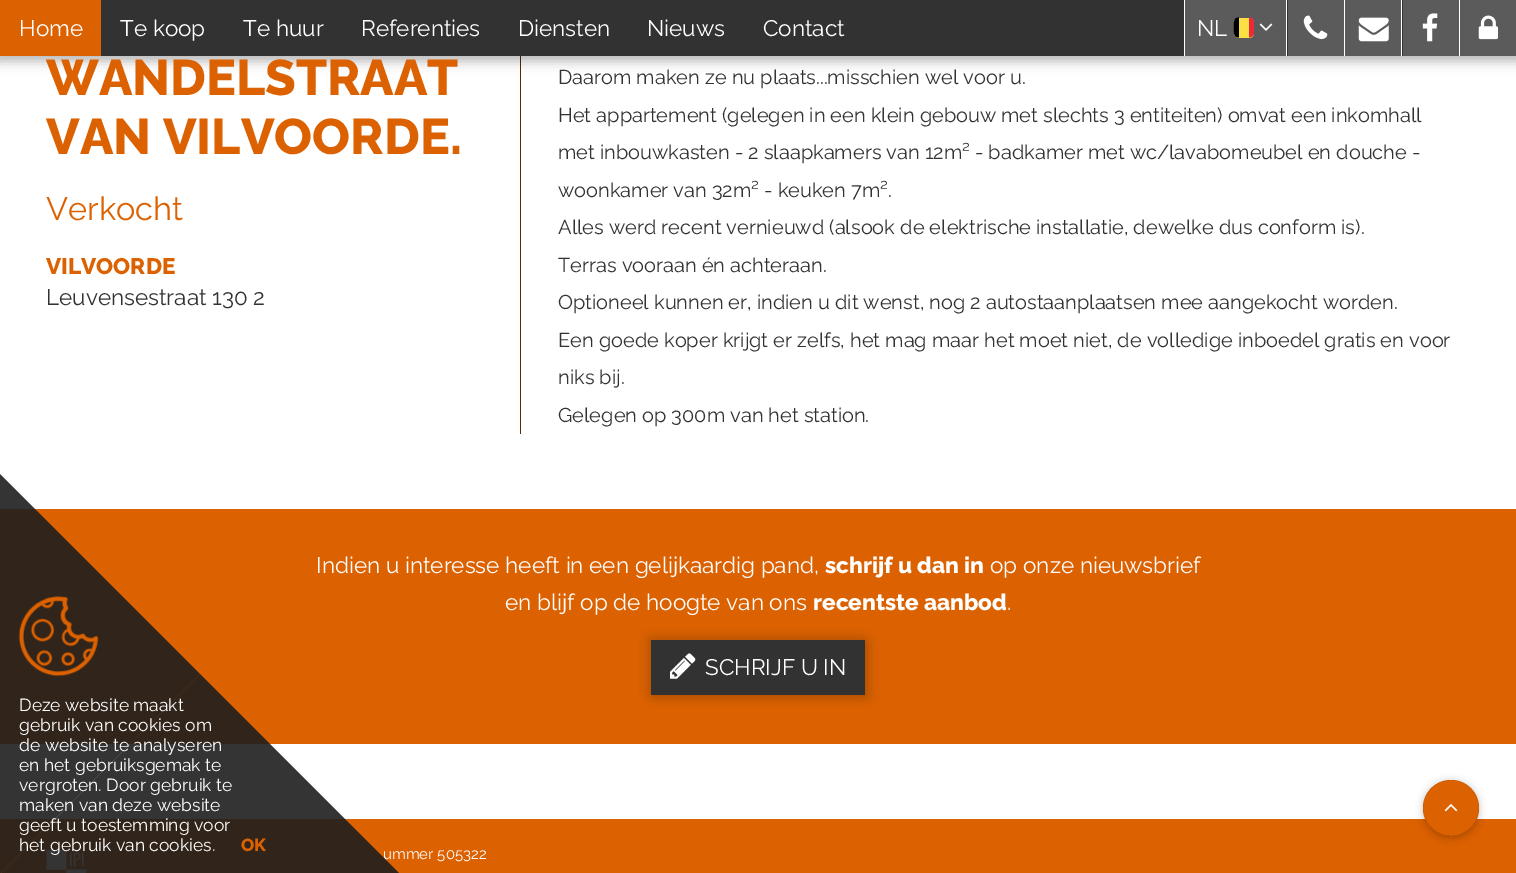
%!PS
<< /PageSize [1516 873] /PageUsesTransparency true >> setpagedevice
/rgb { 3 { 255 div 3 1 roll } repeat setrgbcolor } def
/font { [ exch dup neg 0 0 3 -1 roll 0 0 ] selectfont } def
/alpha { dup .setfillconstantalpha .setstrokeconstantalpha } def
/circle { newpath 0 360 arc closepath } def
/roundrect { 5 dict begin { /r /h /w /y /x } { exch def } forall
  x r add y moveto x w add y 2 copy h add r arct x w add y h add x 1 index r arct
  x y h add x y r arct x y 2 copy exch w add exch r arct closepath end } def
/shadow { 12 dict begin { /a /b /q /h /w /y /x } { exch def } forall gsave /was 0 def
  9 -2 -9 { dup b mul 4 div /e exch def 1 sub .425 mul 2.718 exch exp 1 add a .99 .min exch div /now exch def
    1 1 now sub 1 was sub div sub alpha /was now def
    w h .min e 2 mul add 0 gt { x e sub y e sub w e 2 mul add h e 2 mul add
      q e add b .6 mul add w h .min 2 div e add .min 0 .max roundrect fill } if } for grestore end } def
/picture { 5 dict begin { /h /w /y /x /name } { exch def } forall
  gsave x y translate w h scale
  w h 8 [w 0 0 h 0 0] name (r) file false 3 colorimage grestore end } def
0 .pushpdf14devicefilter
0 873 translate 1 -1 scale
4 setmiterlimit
255 255 255 rgb
0 0 1516 873 rectfill
93 41 0 rgb
520 56 1 378 rectfill
0 0 0 rgb
-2 0 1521 61 0 6 0.3 shadow
[
  [101 0 1302 56 50 50 50]
  [0 0 101 56 220 97 1]
  [1184 0 1 56 255 255 255]
  [1185 0 101 56 91 91 91]
] { aload pop rgb rectfill } forall
250 224 66 rgb
1234 18 20 20 5 roundrect fill
237 41 57 rgb
1254 21 moveto 1253 19 1251 17.5 1249 17.5 curveto 1249 37.5 lineto 1251 37.5 1253 36 1254 34 curveto closepath fill
0 0 0 rgb
1239 17.5 moveto 1233 17.5 1234 23.5 1234 27.5 curveto 1234 31.5 1233 37.5 1239 37.5 curveto closepath fill
(img/1.rgb) 1259 23 14 8 picture
255 255 255 rgb
1286 0 1 56 rectfill
91 91 91 rgb
1288 0 56 56 rectfill
(img/2.rgb) 1303 15 25 25 picture
255 255 255 rgb
1344 0 1 56 rectfill
91 91 91 rgb
1345 0 56 56 rectfill
(img/3.rgb) 1358 17 31 25 picture
255 255 255 rgb
1401 0 1 56 rectfill
91 91 91 rgb
1403 0 56 56 rectfill
(img/4.rgb) 1422 13 16 29 picture
255 255 255 rgb
1459 0 1 56 rectfill
91 91 91 rgb
1460 0 56 56 rectfill
(img/5.rgb) 1478 15 21 25 picture
220 97 1 rgb
0 509 1516 235 rectfill
0 0 0 rgb
649 638 214 55 0 6 0.15 shadow
654 643 214 55 0 6 0.15 shadow
50 50 50 rgb
651 640 214 55 rectfill
(img/6.rgb) 670 653 26 26 picture
220 97 1 rgb
0 819 1516 54 rectfill
1451 808 28 circle fill
gsave
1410 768 moveto 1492 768 lineto 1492 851 lineto 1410 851 lineto closepath 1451 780 moveto 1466.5 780 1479 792.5 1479 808 curveto 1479 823.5 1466.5 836 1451 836 curveto 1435.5 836 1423 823.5 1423 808 curveto 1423 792.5 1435.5 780 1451 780 curveto closepath eoclip newpath
0 0 0 rgb
1423 781 56 57 28 4 0.24 shadow
grestore
0.24 alpha
1451 808 28 circle fill
1 alpha
(img/8.rgb) 1444 804 14 8 picture
(img/9.rgb) 46 850 40 23 picture
/Raleway-Regular 22.5 font
255 255 255 rgb
[
  [(Home) 19 36]
  [(Te koop) 120 36]
  [(Te huur) 243 36]
  [(Referenties) 361 36]
  [(Diensten) 518 36]
  [(Nieuws) 647 36]
  [(Contact) 763 36]
  [(NL) 1197 36]
] { aload pop moveto show } forall
/Raleway-ExtraBold 50 font
220 97 1 rgb
46 95 moveto (WANDELSTRAAT) show
46 154 moveto (VAN VILVOORDE.) show
/Raleway-Regular 32.5 font
46 220 moveto (Verkocht) show
/Raleway-ExtraBold 22.5 font
46 274 moveto (VILVOORDE) show
/Raleway-Regular 22.5 font
50 50 50 rgb
46 305 moveto (Leuvensestraat 130 2) show
/Raleway-Regular 20 font
[
  [(Daarom maken ze nu plaats...misschien wel voor u.) 558 84]
  [(Het appartement \(gelegen in een klein gebouw met slechts 3 entiteiten\) omvat een inkomhall) 558 122]
  [(met inbouwkasten - 2 slaapkamers van 12m² - badkamer met wc/lavabomeubel en douche -) 558 159]
  [(woonkamer van 32m² - keuken 7m².) 558 197]
  [(Alles werd recent vernieuwd \(alsook de elektrische installatie, dewelke dus conform is\).) 558 234]
  [(Terras vooraan én achteraan.) 558 272]
  [(Optioneel kunnen er, indien u dit wenst, nog 2 autostaanplaatsen mee aangekocht worden.) 558 309]
  [(Een goede koper krijgt er zelfs, het mag maar het moet niet, de volledige inboedel gratis en voor) 558 347]
  [(niks bij.) 558 384]
  [(Gelegen op 300m van het station.) 558 422]
] { aload pop moveto show } forall
/Raleway-Regular 22.5 font
255 255 255 rgb
316 573 moveto (Indien u interesse heeft in een gelijkaardig pand,) show
/Raleway-ExtraBold 22.5 font
825 573 moveto (schrijf u dan in) show
/Raleway-Regular 22.5 font
990 573 moveto (op onze nieuwsbrief) show
505 610 moveto (en blijf op de hoogte van ons) show
/Raleway-ExtraBold 22.5 font
813 610 moveto (recentste aanbod) show
/Raleway-Regular 22.5 font
1007 610 moveto (.) show
705 675 moveto (SCHRIJF U IN) show
/Raleway-Regular 15 font
383 859 moveto (ummer 505322) show
0.9 alpha
30 30 30 rgb
400 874 moveto 0 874 lineto 200 674 lineto closepath fill
0 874 moveto 0 474 lineto 200 674 lineto closepath fill
1 alpha
(img/7.rgb) 18 596 81 81 picture
/Raleway-ExtraBold 17.5 font
220 97 1 rgb
241 851 moveto (OK) show
/Raleway-Regular 17.5 font
255 255 255 rgb
[
  [(het gebruik van cookies.) 19 851]
  [(geeft u toestemming voor) 19 831]
  [(maken van deze website) 19 811]
  [(vergroten. Door gebruik te) 19 791]
  [(en het gebruiksgemak te) 19 771]
  [(de website te analyseren) 19 751]
  [(gebruik van cookies om) 19 731]
  [(Deze website maakt) 19 711]
] { aload pop moveto show } forall
.poppdf14devicefilter showpage
